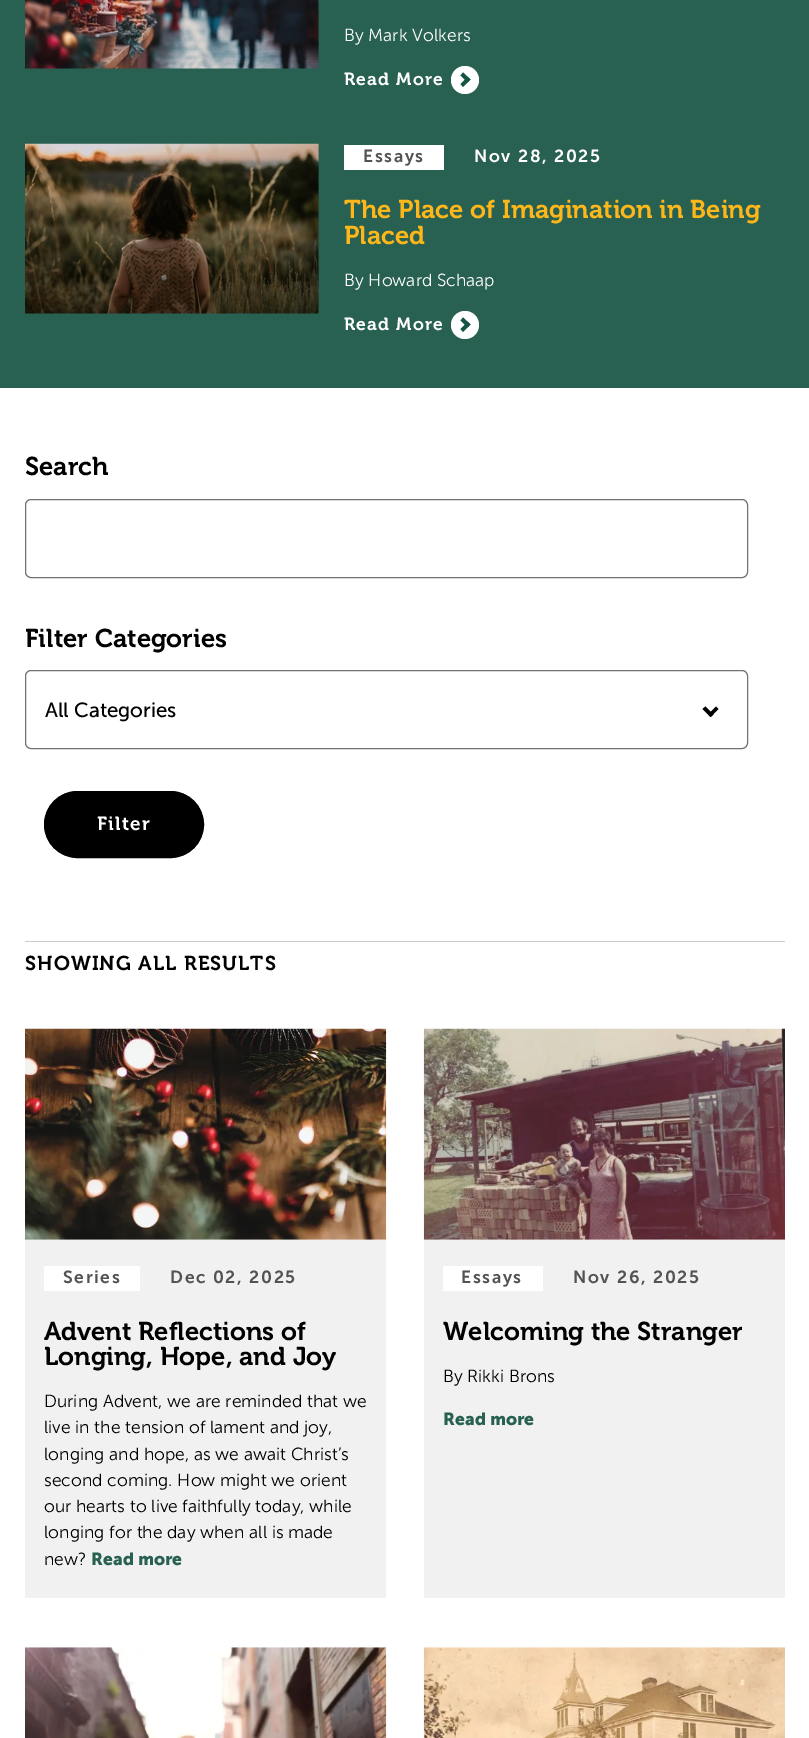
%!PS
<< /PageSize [809 1738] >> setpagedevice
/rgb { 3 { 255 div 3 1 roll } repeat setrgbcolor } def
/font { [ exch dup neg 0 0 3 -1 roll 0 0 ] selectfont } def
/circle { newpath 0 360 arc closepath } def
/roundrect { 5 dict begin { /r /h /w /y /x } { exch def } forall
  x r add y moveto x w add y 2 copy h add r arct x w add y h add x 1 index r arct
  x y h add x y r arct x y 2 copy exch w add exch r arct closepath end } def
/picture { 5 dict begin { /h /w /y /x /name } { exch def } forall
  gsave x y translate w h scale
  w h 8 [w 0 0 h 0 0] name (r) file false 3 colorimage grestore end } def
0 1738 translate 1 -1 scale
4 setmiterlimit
255 255 255 rgb
0 0 809 1738 rectfill
40 96 82 rgb
0 -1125 moveto 0 388 lineto 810 388 lineto 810 -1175 lineto closepath fill
(img/1.rgb) 25 0 294 69 picture
255 255 255 rgb
465 80 14 circle fill
20 85 69 rgb
463 72.5 moveto 470.5 79.5 lineto 467.5 82.5 lineto 460.5 75.5 lineto closepath fill
467.5 77 moveto 470.5 79.5 lineto 463 87 lineto 460.5 84 lineto closepath fill
(img/2.rgb) 25 143 294 171 picture
255 255 255 rgb
344 145 100 25 rectfill
465 325 14 circle fill
20 85 69 rgb
463 317.5 moveto 470.5 324.5 lineto 467.5 327.5 lineto 460.5 320.5 lineto closepath fill
467.5 322 moveto 470.5 324.5 lineto 463 332 lineto 460.5 329 lineto closepath fill
114 114 114 rgb
25.5 499.5 722 78 5.5 roundrect stroke
25.5 670.5 722 78 5.5 roundrect stroke
0 0 0 rgb
716 706.5 moveto 718.5 709 lineto 710.5 717 lineto 708 714.5 lineto closepath fill
705.5 706.5 moveto 713.5 714.5 lineto 710.5 717 lineto 702.5 709 lineto closepath fill
44.5 791.5 159 66 33 roundrect gsave fill grestore
stroke
203 204 203 rgb
25 941 760 1 rectfill
241 241 241 rgb
25 1239 361 359 rectfill
(img/3.rgb) 25 1028 362 212 picture
255 255 255 rgb
44 1266 96 25 rectfill
241 241 241 rgb
424 1239 361 359 rectfill
(img/4.rgb) 423 1028 362 212 picture
255 255 255 rgb
443 1266 100 25 rectfill
(img/5.rgb) 25 1647 362 91 picture
(img/6.rgb) 423 1647 362 91 picture
/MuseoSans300-Light 17.5 font
344 41 moveto (By Mark Volkers) show
/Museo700-SemiBold 17.5 font
344 85 moveto 1.25 0 (Read More) ashow
/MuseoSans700-SemiBold 17.5 font
83 83 83 rgb
363 162 moveto 1.6 0 (Essays) ashow
255 255 255 rgb
474 162 moveto 1.6 0 (Nov 28, 2025) ashow
/Museo700-SemiBold 25.6 font
253 183 26 rgb
344 218 moveto (The Place of Imagination in Being) show
344 244 moveto (Placed) show
/MuseoSans300-Light 17.5 font
255 255 255 rgb
344 286 moveto (By Howard Schaap) show
/Museo700-SemiBold 17.5 font
344 330 moveto 1.25 0 (Read More) ashow
/Museo700-SemiBold 25.6 font
0 0 0 rgb
25 475 moveto (Search) show
25 647 moveto (Filter Categories) show
/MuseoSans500-Regular 20.5 font
45 717 moveto (All Categories) show
/Museo700-SemiBold 19 font
255 255 255 rgb
97 830 moveto 1.25 0 (Filter) ashow
/Museo700-SemiBold 20 font
0 0 0 rgb
25 970 moveto 1.1 0 (SHOWING ALL RESULTS) ashow
/MuseoSans700-SemiBold 17.5 font
83 83 83 rgb
63 1283 moveto 1.6 0 (Series) ashow
170 1283 moveto 1.6 0 (Dec 02, 2025) ashow
/Museo700-SemiBold 25.6 font
0 0 0 rgb
44 1340 moveto (Advent Reflections of) show
44 1365 moveto (Longing, Hope, and Joy) show
/MuseoSans300-Light 17.5 font
[
  [(During Advent, we are reminded that we) 44 1407]
  [(live in the tension of lament and joy,) 44 1433]
  [(longing and hope, as we await Christ’s) 44 1460]
  [(second coming. How might we orient) 44 1486]
  [(our hearts to live faithfully today, while) 44 1512]
  [(longing for the day when all is made) 44 1538]
  [(new?) 44 1565]
] { aload pop moveto show } forall
/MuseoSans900-Bold 17.5 font
40 96 82 rgb
91 1565 moveto (Read more) show
/MuseoSans700-SemiBold 17.5 font
83 83 83 rgb
461 1283 moveto 1.6 0 (Essays) ashow
573 1283 moveto 1.6 0 (Nov 26, 2025) ashow
/Museo700-SemiBold 25.6 font
0 0 0 rgb
443 1340 moveto (Welcoming the Stranger) show
/MuseoSans300-Light 17.5 font
443 1382 moveto (By Rikki Brons) show
/MuseoSans900-Bold 17.5 font
40 96 82 rgb
443 1425 moveto (Read more) show
showpage
